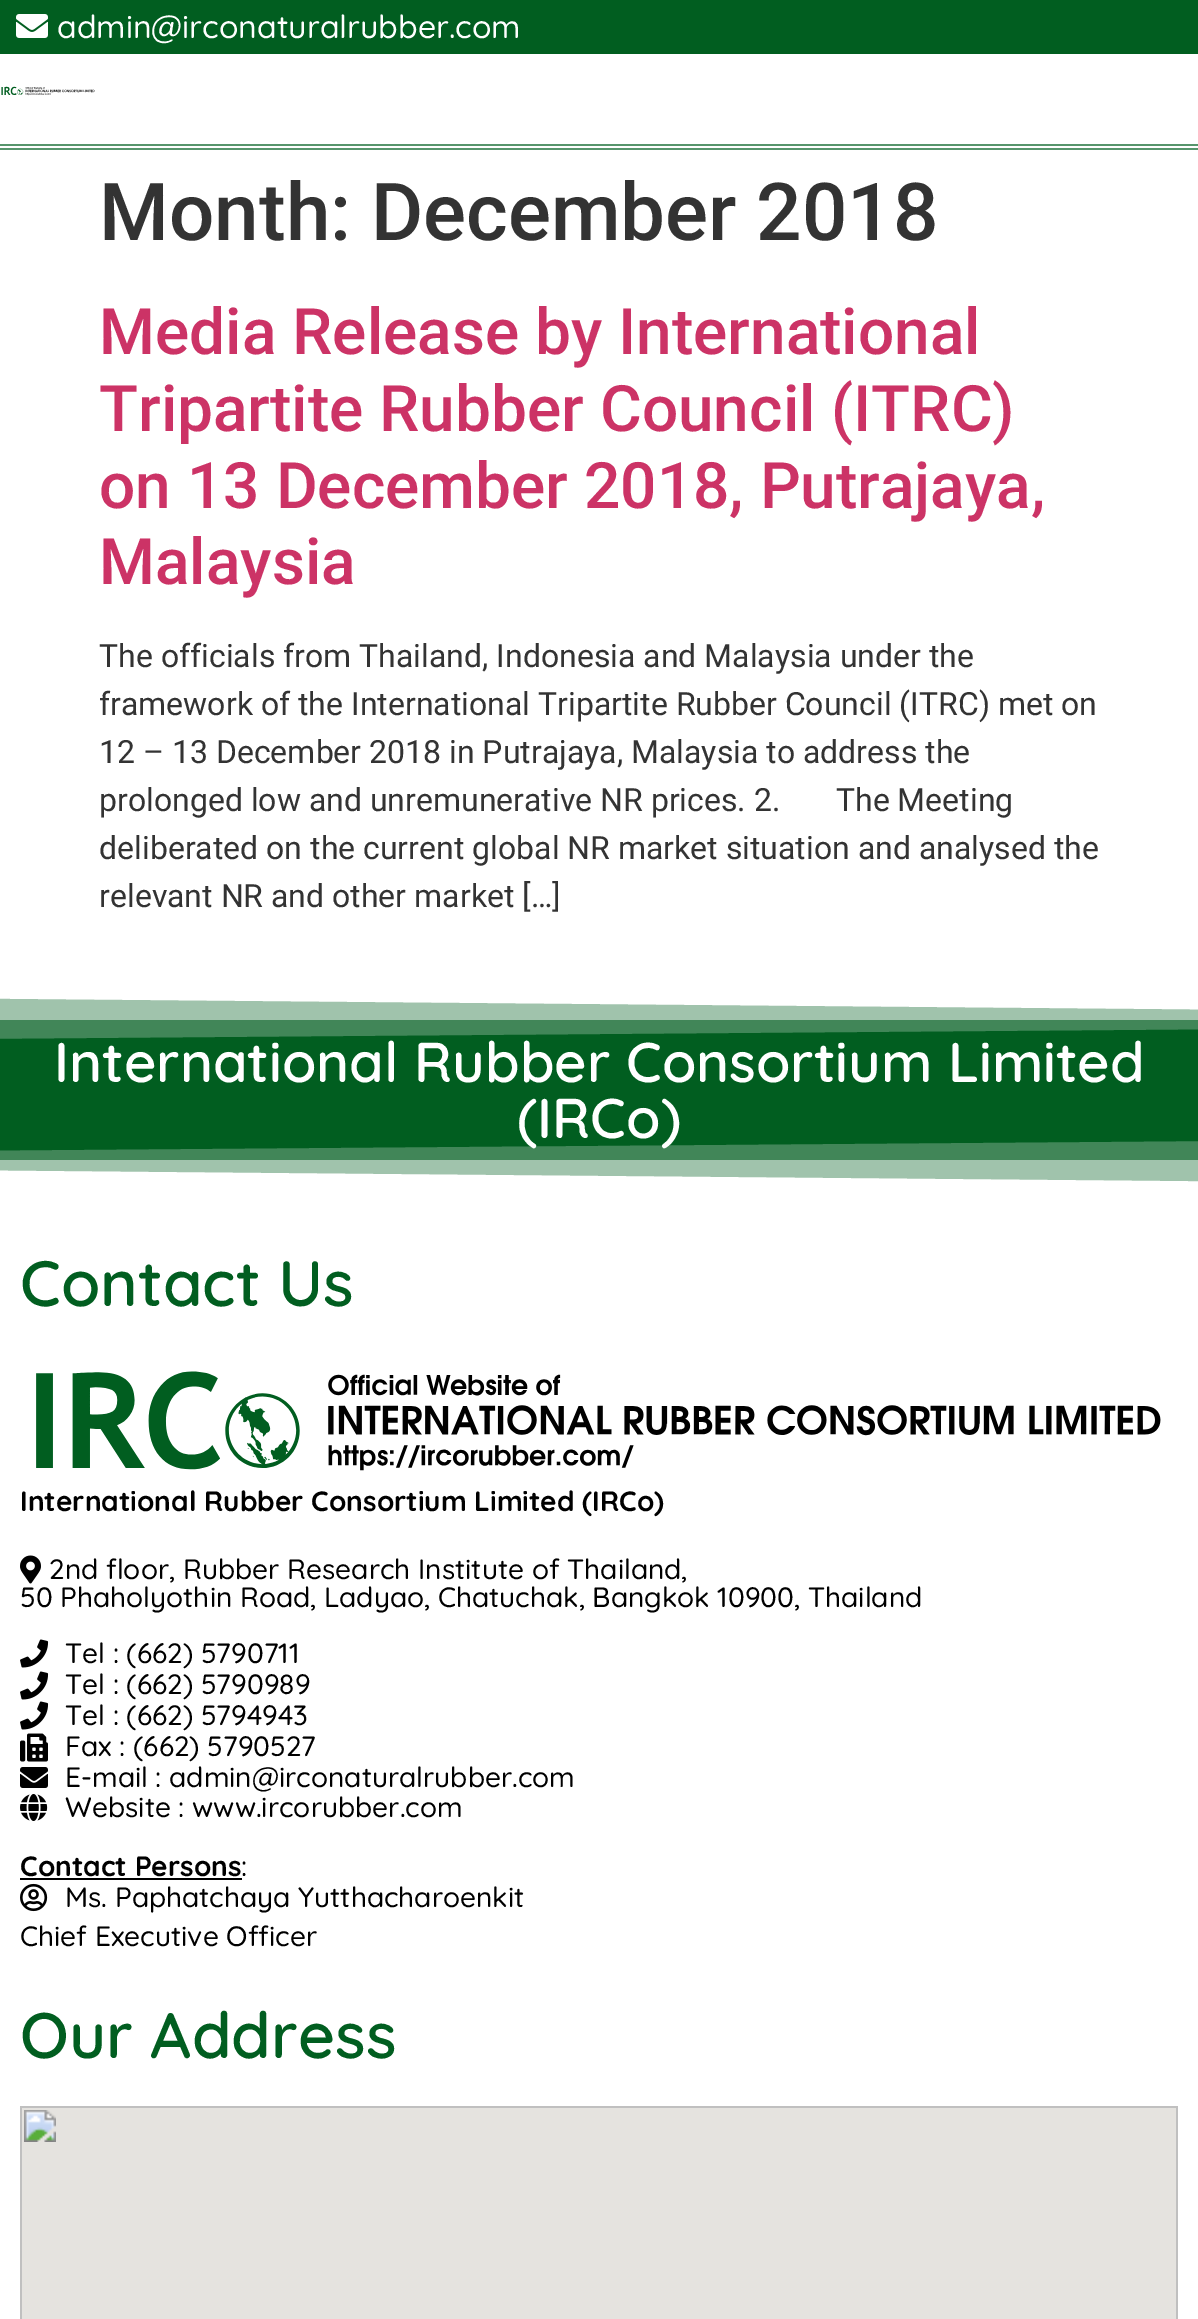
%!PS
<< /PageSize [1198 2319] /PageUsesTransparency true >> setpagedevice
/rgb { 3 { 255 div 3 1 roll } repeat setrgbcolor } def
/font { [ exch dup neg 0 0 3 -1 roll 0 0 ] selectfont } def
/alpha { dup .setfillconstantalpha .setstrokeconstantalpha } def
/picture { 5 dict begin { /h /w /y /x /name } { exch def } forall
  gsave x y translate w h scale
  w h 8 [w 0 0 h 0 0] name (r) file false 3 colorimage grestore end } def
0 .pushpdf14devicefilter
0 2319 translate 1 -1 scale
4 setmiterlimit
255 255 255 rgb
0 0 1198 2319 rectfill
1 94 32 rgb
0 0 1198 54 rectfill
(img/1.rgb) 16 14 32 24 picture
(img/2.rgb) 1 86 94 10 picture
[
  [0 144 1198 2 87 149 108]
  [0 148 1198 2 87 149 108]
  [0 1020 1198 140 1 94 32]
  [0 1160 1198 22 128 175 144]
  [0 998 1198 22 128 175 144]
] { aload pop rgb rectfill } forall
255 255 255 rgb
-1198 988 moveto 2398 988 lineto 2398 1020 lineto closepath fill
0.25 alpha
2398 988 moveto -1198 988 lineto -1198 1048 lineto 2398 1020 lineto closepath fill
1 alpha
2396 1192 moveto -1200 1192 lineto -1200 1160 lineto closepath fill
0.25 alpha
-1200 1192 moveto 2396 1192 lineto 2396 1132 lineto -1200 1160 lineto closepath fill
1 alpha
(img/3.rgb) 36 1371 1125 100 picture
(img/4.rgb) 20 1555 21 29 picture
(img/5.rgb) 20 1639 29 29 picture
(img/5.rgb) 20 1671 29 29 picture
(img/5.rgb) 20 1701 29 29 picture
(img/6.rgb) 20 1733 28 29 picture
(img/7.rgb) 20 1767 28 21 picture
(img/8.rgb) 20 1794 28 27 picture
0 0 0 rgb
20 1878 222 2 rectfill
(img/9.rgb) 20 1883 28 29 picture
(img/10.rgb) 20 2106 1158 213 picture
/Quicksand-Medium 32 font
255 255 255 rgb
57 38 moveto (admin@irconaturalrubber.com) show
/Roboto-Medium 80 font
51 51 51 rgb
99 240 moveto (Month: December 2018) show
/Roboto-Medium 64 font
204 51 102 rgb
[
  [(Media Release by International) 99 354]
  [(Tripartite Rubber Council \(ITRC\)) 99 431]
  [(on 13 December 2018, Putrajaya,) 99 508]
  [(Malaysia) 99 584]
] { aload pop moveto show } forall
/Roboto-Regular 32 font
51 51 51 rgb
[
  [(The officials from Thailand, Indonesia and Malaysia under the) 99 667]
  [(framework of the International Tripartite Rubber Council \(ITRC\) met on) 99 715]
  [(12 – 13 December 2018 in Putrajaya, Malaysia to address the) 99 763]
  [(prolonged low and unremunerative NR prices. 2.       The Meeting) 99 811]
  [(deliberated on the current global NR market situation and analysed the) 99 859]
  [(relevant NR and other market […]) 99 907]
] { aload pop moveto show } forall
/Quicksand-SemiBold 56 font
255 255 255 rgb
54 1082 moveto (International Rubber Consortium Limited) show
517 1138 moveto (\(IRCo\)) show
/Quicksand-SemiBold 64 font
1 94 32 rgb
20 1306 moveto (Contact Us) show
/Quicksand-Bold 28 font
0 0 0 rgb
20 1511 moveto (International Rubber Consortium Limited \(IRCo\)) show
/Quicksand-Medium 28 font
[
  [(2nd floor, Rubber Research Institute of Thailand,) 49 1579]
  [(50 Phaholyothin Road, Ladyao, Chatuchak, Bangkok 10900, Thailand) 20 1607]
  [(Tel : \(662\) 5790711) 65 1663]
  [(Tel : \(662\) 5790989) 65 1694]
  [(Tel : \(662\) 5794943) 65 1725]
  [(Fax : \(662\) 5790527) 65 1756]
  [(E-mail : admin@irconaturalrubber.com) 65 1787]
  [(Website : www.ircorubber.com) 65 1817]
] { aload pop moveto show } forall
/Quicksand-Bold 28 font
20 1876 moveto (Contact Persons) show
/Quicksand-Medium 28 font
[
  [(:) 241 1876]
  [(Ms. Paphatchaya Yutthacharoenkit) 65 1907]
  [(Chief Executive Officer) 20 1946]
] { aload pop moveto show } forall
/Quicksand-SemiBold 64 font
1 94 32 rgb
20 2058 moveto (Our Address) show
.poppdf14devicefilter showpage
